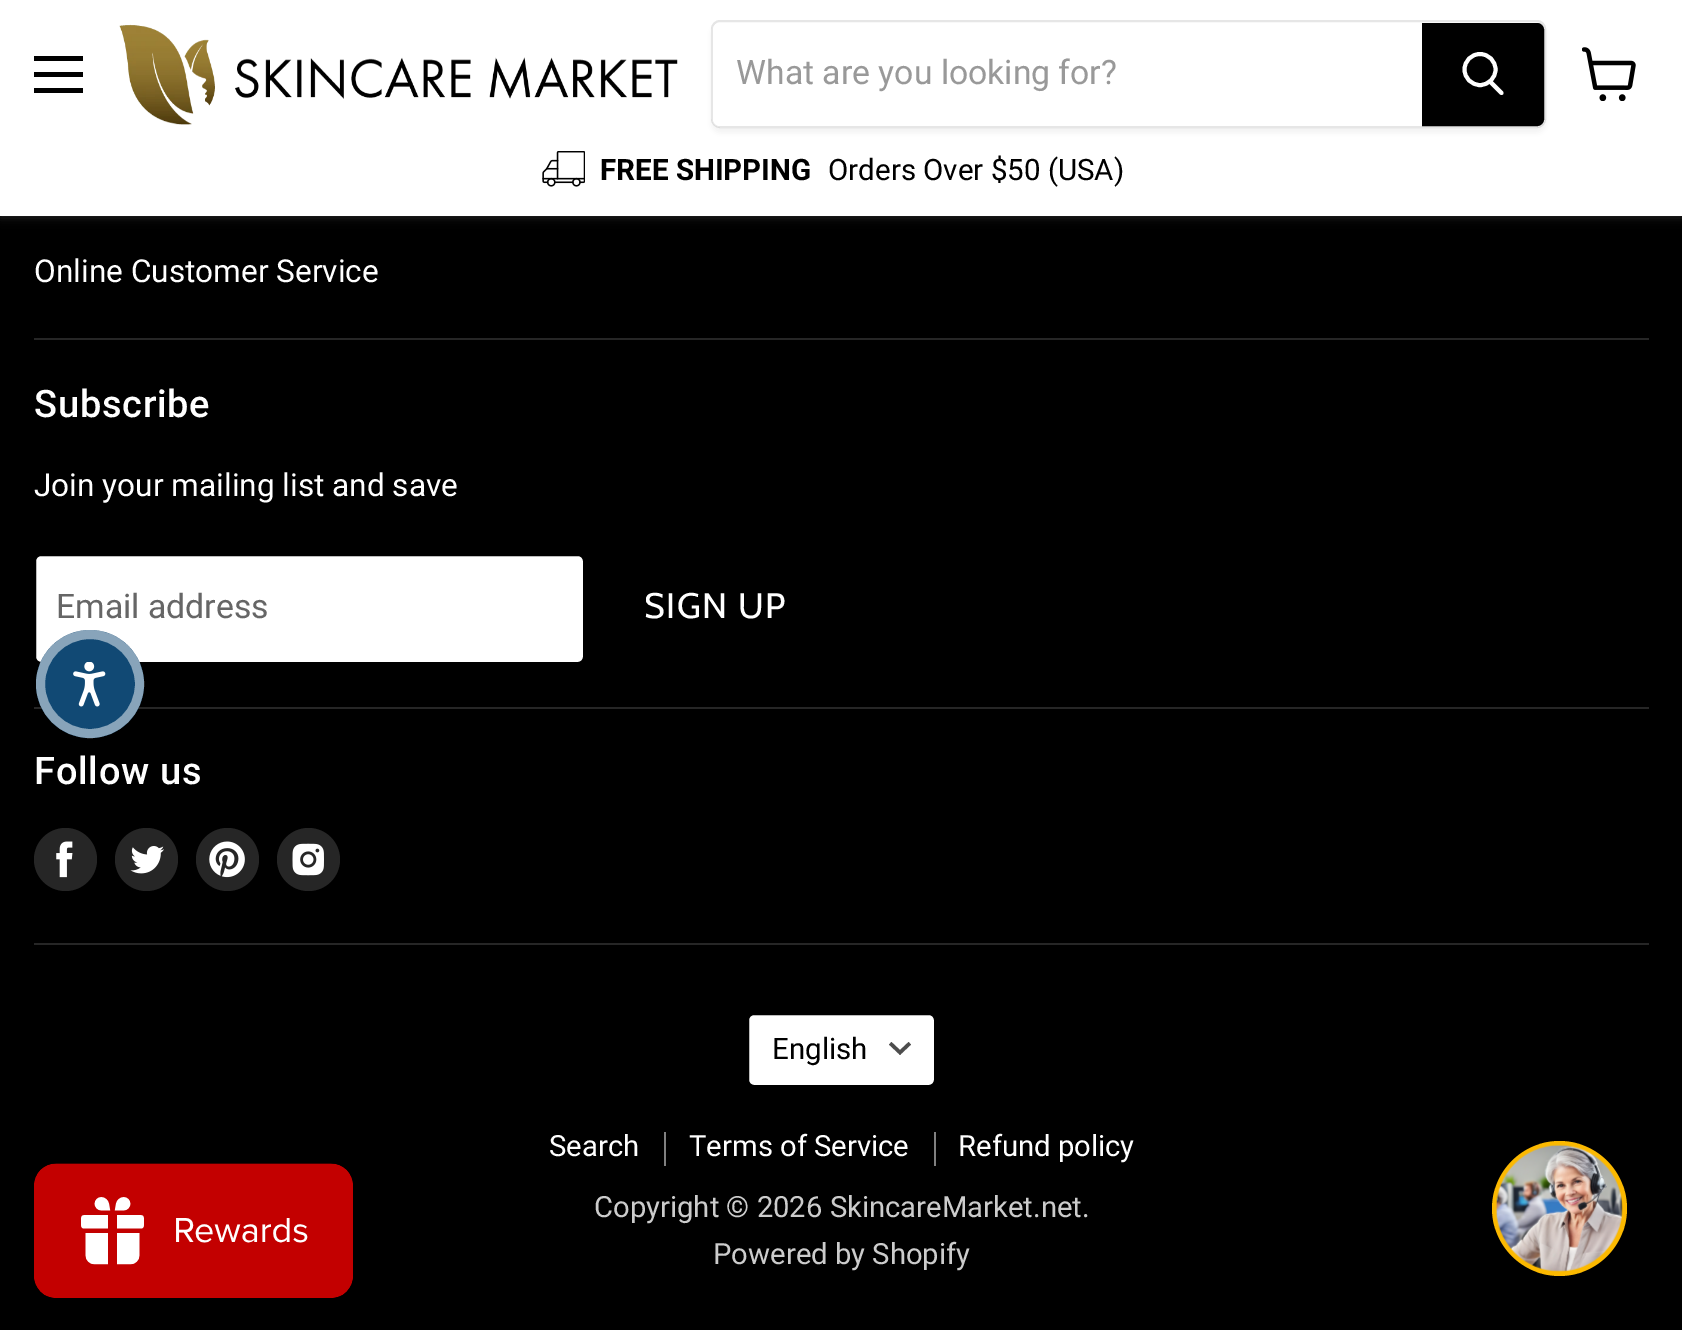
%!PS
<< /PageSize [1682 1330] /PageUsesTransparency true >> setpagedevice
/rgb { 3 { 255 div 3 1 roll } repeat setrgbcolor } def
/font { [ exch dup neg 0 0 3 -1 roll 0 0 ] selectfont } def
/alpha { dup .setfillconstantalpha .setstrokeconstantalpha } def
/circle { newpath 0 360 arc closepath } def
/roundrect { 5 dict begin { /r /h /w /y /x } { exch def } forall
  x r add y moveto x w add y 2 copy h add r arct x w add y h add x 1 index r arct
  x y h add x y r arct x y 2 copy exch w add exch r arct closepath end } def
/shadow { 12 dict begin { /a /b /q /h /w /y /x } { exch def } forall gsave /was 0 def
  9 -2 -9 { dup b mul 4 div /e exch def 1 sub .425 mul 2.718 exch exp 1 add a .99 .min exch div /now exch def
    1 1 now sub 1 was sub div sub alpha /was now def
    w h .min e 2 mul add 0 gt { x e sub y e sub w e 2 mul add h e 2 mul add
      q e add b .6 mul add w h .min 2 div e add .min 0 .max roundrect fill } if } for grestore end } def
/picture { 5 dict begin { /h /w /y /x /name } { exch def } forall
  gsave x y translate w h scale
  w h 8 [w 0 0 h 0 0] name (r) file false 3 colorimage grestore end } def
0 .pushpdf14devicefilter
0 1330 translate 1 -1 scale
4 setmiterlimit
0 0 0 rgb
0 0 1682 1330 rectfill
128 128 128 rgb
0 2 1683 216 0 4.5 0.25 shadow
[
  [0 0 1682 216 255 255 255]
  [34 56 49 5 0 0 0]
  [34 72 49 5 0 0 0]
  [34 88 49 5 0 0 0]
] { aload pop rgb rectfill } forall
(img/1.rgb) 119 24 559 101 picture
gsave
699 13 moveto 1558 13 lineto 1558 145 lineto 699 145 lineto closepath 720 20 moveto 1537 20 lineto 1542 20 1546 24 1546 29 curveto 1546 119 lineto 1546 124 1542 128 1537 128 curveto 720 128 lineto 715 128 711 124 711 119 curveto 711 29 lineto 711 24 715 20 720 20 curveto closepath eoclip newpath
128 128 128 rgb
711 25 835 108 9 3.5 0.11 shadow
grestore
0.2 alpha
128 128 128 rgb
2 setlinewidth
712 21 833 106 8 roundrect stroke
1 alpha
255 255 255 rgb
720 23 moveto 1422 23 lineto 1422 126 lineto 720 126 lineto 716 126 713 123 713 119 curveto 713 30 lineto 713 26 716 23 720 23 curveto closepath fill
0 0 0 rgb
1423 24 moveto 1537 24 lineto 1540.5 24 1543 26.5 1543 30 curveto 1543 119 lineto 1543 122.5 1540.5 125 1537 125 curveto 1423 125 lineto closepath gsave fill grestore
stroke
255 255 255 rgb
3.9 setlinewidth
1 setlinecap
1501.5 93 moveto 1490.5 82 lineto stroke
0 setlinecap
1480 69.5 15.5 circle stroke
(img/2.rgb) 542 151 43 36 picture
(img/3.rgb) 1582 47 54 54 picture
38 38 38 rgb
34 338 1615 2 rectfill
34 707 1615 2 rectfill
255 255 255 rgb
35 555 549 108 6 roundrect gsave fill grestore
0 0 0 rgb
2 setlinewidth
stroke
38 38 38 rgb
34 943 1615 2 rectfill
65.5 859.5 31.5 circle fill
(img/4.rgb) 56 841 17 37 picture
146.5 859.5 31.5 circle fill
(img/5.rgb) 130 846 34 28 picture
227.5 859.5 31.5 circle fill
(img/6.rgb) 209 841 36 37 picture
308.5 859.5 31.5 circle fill
(img/7.rgb) 292 843 32 33 picture
255 255 255 rgb
748 1014 187 72 6 roundrect gsave fill grestore
0 0 0 rgb
stroke
77 77 77 rgb
3.5 setlinewidth
2 setlinecap
900 1052.5 moveto 908.5 1044.5 lineto 900 1052.5 moveto 891.5 1044.5 lineto stroke
128 128 128 rgb
664 1132 2 34 rectfill
934 1132 2 34 rectfill
17 73 116 rgb
90 684 54 circle fill
0.5 alpha
255 255 255 rgb
9 setlinewidth
0 setlinecap
90 684 49.5 circle stroke
1 alpha
(img/8.rgb) 73 662 33 45 picture
(img/9.rgb) 34 1163 319 135 picture
252 185 0 rgb
1559.5 1208.5 67.5 circle fill
(img/10.rgb) 1495 1144 128 128 picture
/Roboto-Regular 33.75 font
153 153 153 rgb
736 84 moveto (What are you looking for?) show
/Roboto-Bold 29.5 font
0 0 0 rgb
600 180 moveto (FREE SHIPPING) show
/Roboto-Regular 29.5 font
828 180 moveto (Orders Over $50 \(USA\)) show
/Roboto-Regular 31.6 font
255 255 255 rgb
34 282 moveto (Online Customer Service) show
/Roboto-Medium 38 font
34 417 moveto 0.75 0 (Subscribe) ashow
/Roboto-Regular 31.6 font
34 496 moveto (Join your mailing list and save) show
/Roboto-Regular 33.75 font
102 102 102 rgb
56 618 moveto (Email address) show
/Cabin-Regular 35.5 font
255 255 255 rgb
644 618 moveto 1.5 0 (SIGN UP) ashow
/Roboto-Medium 38 font
34 784 moveto 0.75 0 (Follow us) ashow
/Roboto-Regular 29.5 font
0 0 0 rgb
772 1059 moveto (English) show
/Roboto-Regular 29.25 font
255 255 255 rgb
[
  [(Search) 549 1156]
  [(Terms of Service) 689 1156]
  [(Refund policy) 958 1156]
] { aload pop moveto show } forall
204 204 204 rgb
594 1217 moveto (Copyright © 2026 SkincareMarket.net.) show
713 1264 moveto (Powered by Shopify) show
.poppdf14devicefilter showpage
